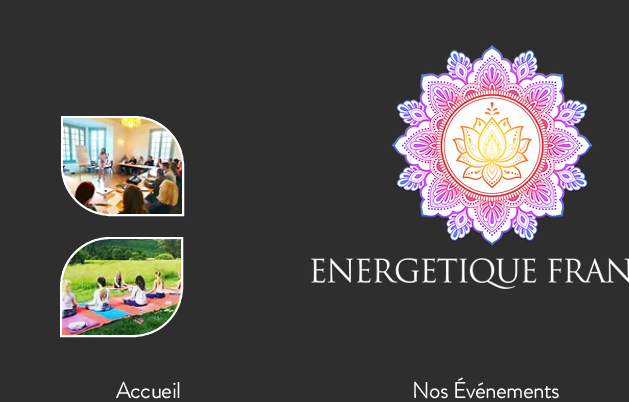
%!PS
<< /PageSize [629 402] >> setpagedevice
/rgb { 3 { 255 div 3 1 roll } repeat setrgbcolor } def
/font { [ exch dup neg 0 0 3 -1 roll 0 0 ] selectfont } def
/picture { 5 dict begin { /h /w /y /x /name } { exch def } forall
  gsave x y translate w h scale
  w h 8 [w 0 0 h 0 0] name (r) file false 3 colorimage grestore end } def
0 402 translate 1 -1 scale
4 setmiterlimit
47 46 46 rgb
0 0 629 402 rectfill
255 255 255 rgb
62 117 moveto 134 117 lineto 161 117 183 139 183 166 curveto 183 215 lineto 111 215 lineto 84 215 62 193 62 166 curveto closepath gsave fill grestore
2 setlinewidth
stroke
(img/1.rgb) 63 118 119 96 picture
(img/2.rgb) 310 45 319 245 picture
110 238 moveto 182 238 lineto 182 287 lineto 182 314 160 336 133 336 curveto 61 336 lineto 61 287 lineto 61 260 83 238 110 238 curveto closepath gsave fill grestore
stroke
(img/3.rgb) 62 239 119 96 picture
/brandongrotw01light-Bold 22 font
116 398 moveto (Accueil) show
412 398 moveto (Nos Événements) show
showpage
